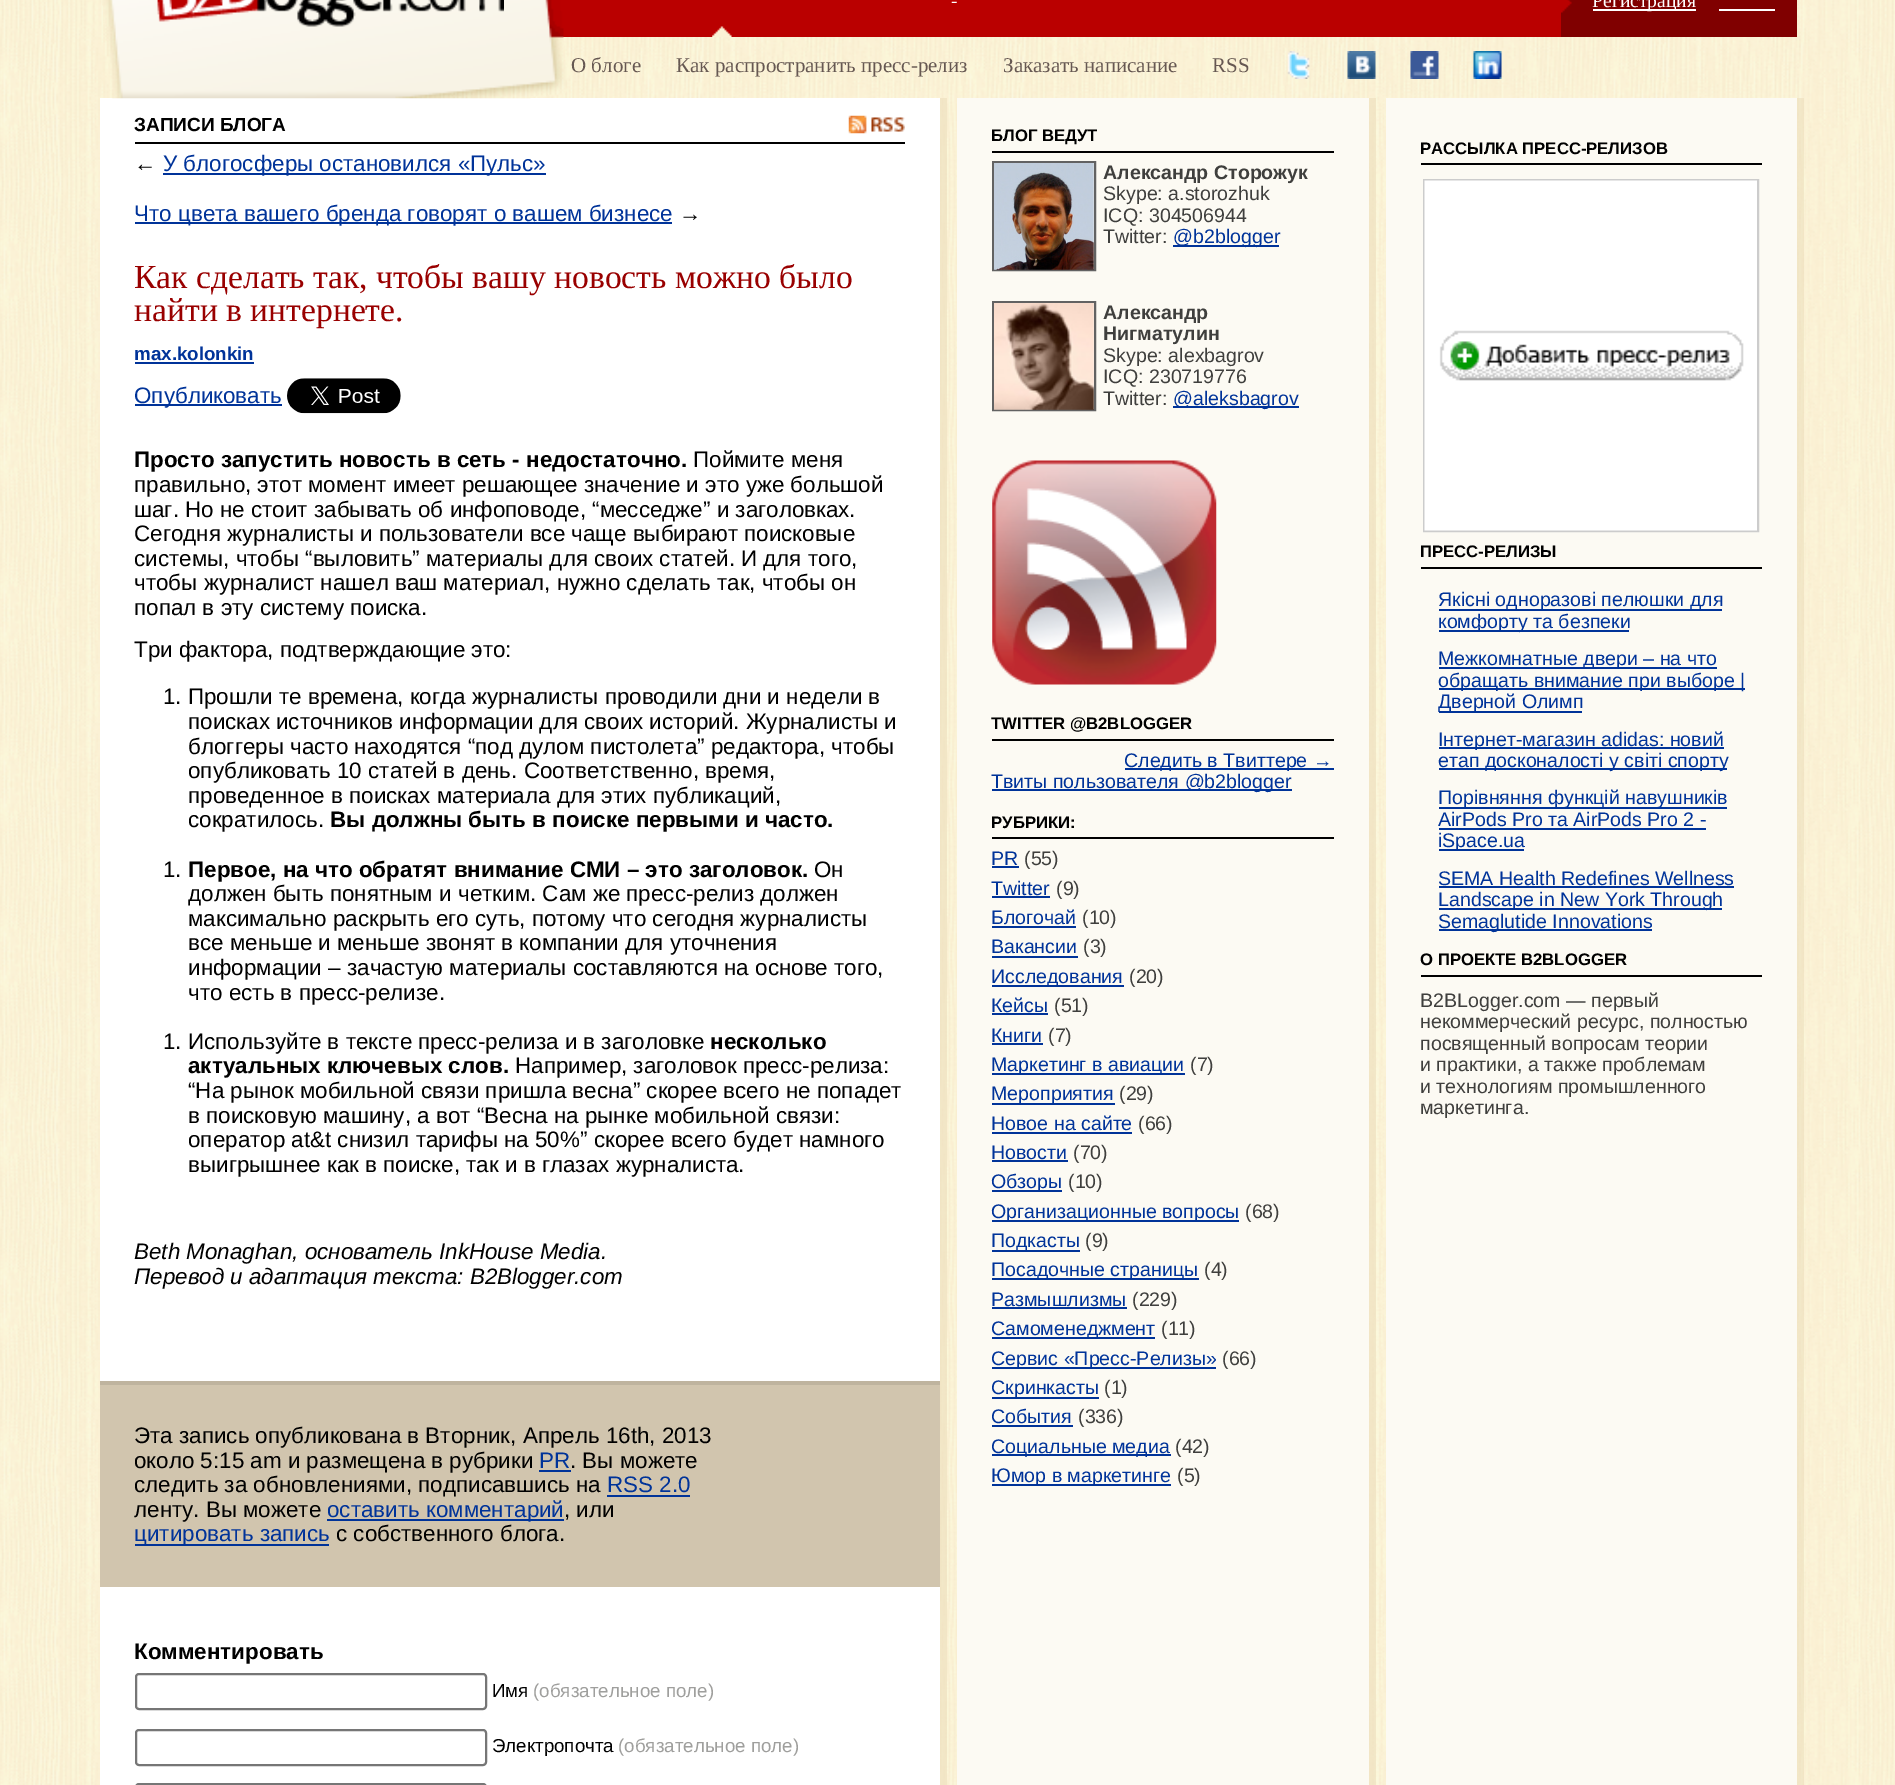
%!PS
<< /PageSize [1895 1785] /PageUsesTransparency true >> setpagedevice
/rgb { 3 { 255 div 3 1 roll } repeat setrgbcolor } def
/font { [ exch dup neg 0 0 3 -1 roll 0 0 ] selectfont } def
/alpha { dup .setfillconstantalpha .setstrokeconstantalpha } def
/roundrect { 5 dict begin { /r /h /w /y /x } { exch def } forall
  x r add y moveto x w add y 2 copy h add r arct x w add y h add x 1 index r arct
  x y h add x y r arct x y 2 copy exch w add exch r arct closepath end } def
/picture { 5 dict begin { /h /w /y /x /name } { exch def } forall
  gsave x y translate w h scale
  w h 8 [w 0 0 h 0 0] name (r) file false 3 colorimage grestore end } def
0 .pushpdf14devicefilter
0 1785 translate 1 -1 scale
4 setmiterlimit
255 255 255 rgb
0 0 1895 1785 rectfill
(img/1.rgb) 0 0 1895 1785 picture
186 0 0 rgb
559 0 1002 37 rectfill
255 255 255 rgb
100 98 840 1687 rectfill
(img/2.rgb) 102 0 465 99 picture
(img/3.rgb) 157 0 347 27 picture
128 0 0 rgb
1561 0 236 37 rectfill
(img/4.rgb) 1561 0 11 13 picture
255 255 255 rgb
1593 9 103 2 rectfill
1719 9 56 2 rectfill
(img/5.rgb) 712 26 20 11 picture
(img/6.rgb) 1287 51 23 28 picture
(img/7.rgb) 1347 51 29 28 picture
(img/8.rgb) 1410 51 29 28 picture
(img/9.rgb) 1473 51 29 28 picture
0.6 alpha
236 222 188 rgb
107 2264 moveto 107 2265 lineto 947 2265 lineto 947 98 lineto 940 98 lineto 940 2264 lineto closepath fill
1 alpha
0 0 0 rgb
135 142 770 2 rectfill
(img/10.rgb) 848 115 57 19 picture
[
  [163 173 383 2 0 51 153]
  [135 222 537 2 0 51 153]
  [135 362 119 2 0 51 153]
  [135 404 147 2 0 51 153]
] { aload pop rgb rectfill } forall
(img/11.rgb) 287 378 114 36 picture
[
  [100 1385 840 202 209 197 174]
  [100 1381 840 4 191 180 159]
  [539 1470 32 2 0 51 153]
  [607 1495 83 2 0 51 153]
  [327 1519 237 2 0 51 153]
  [135 1544 194 2 0 51 153]
] { aload pop rgb rectfill } forall
118 118 118 rgb
2 setlinewidth
136 1674 350 35 3 roundrect stroke
136 1730 350 35 3 roundrect stroke
136 1784 350 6 3 roundrect stroke
0.6 alpha
236 222 188 rgb
964 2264 moveto 964 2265 lineto 1376 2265 lineto 1376 98 lineto 1368 98 lineto 1368 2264 lineto closepath fill
1 alpha
252 250 243 rgb
957 98 412 1687 rectfill
0 0 0 rgb
992 151 342 2 rectfill
98 98 98 rgb
993 162 102 108 rectstroke
(img/12.rgb) 994 163 100 107 picture
0 51 153 rgb
1173 245 106 2 rectfill
98 98 98 rgb
993 302 102 108 rectstroke
(img/13.rgb) 994 303 100 107 picture
0 51 153 rgb
1173 406 126 2 rectfill
(img/14.rgb) 992 460 225 225 picture
[
  [992 739 342 2 0 0 0]
  [1125 768 209 2 0 51 153]
  [992 789 300 2 0 51 153]
  [992 837 342 2 0 0 0]
  [992 866 27 2 0 51 153]
  [992 896 58 2 0 51 153]
  [992 926 84 2 0 51 153]
  [992 956 86 2 0 51 153]
  [992 985 132 2 0 51 153]
  [992 1013 56 2 0 51 153]
  [992 1043 51 2 0 51 153]
  [992 1073 193 2 0 51 153]
  [992 1103 123 2 0 51 153]
  [992 1132 140 2 0 51 153]
  [992 1160 76 2 0 51 153]
  [992 1190 70 2 0 51 153]
  [992 1220 247 2 0 51 153]
  [992 1250 88 2 0 51 153]
  [992 1278 207 2 0 51 153]
  [992 1307 135 2 0 51 153]
  [992 1337 163 2 0 51 153]
  [992 1367 224 2 0 51 153]
  [992 1397 107 2 0 51 153]
  [992 1425 81 2 0 51 153]
  [992 1454 179 2 0 51 153]
  [992 1484 179 2 0 51 153]
] { aload pop rgb rectfill } forall
0.6 alpha
236 222 188 rgb
1393 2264 moveto 1393 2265 lineto 1804 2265 lineto 1804 98 lineto 1797 98 lineto 1797 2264 lineto closepath fill
1 alpha
252 250 243 rgb
1386 98 411 1687 rectfill
0 0 0 rgb
1421 163 341 2 rectfill
204 204 204 rgb
1424 180 334 351 rectstroke
(img/15.rgb) 1424 180 333 351 picture
[
  [1421 567 341 2 0 0 0]
  [1439 609 283 2 0 51 153]
  [1439 630 190 2 0 51 153]
  [1439 667 278 2 0 51 153]
  [1439 688 306 2 0 51 153]
  [1439 711 143 2 0 51 153]
  [1439 747 285 2 0 51 153]
  [1439 768 288 2 0 51 153]
  [1439 807 288 2 0 51 153]
  [1439 828 267 2 0 51 153]
  [1439 849 85 2 0 51 153]
  [1439 886 295 2 0 51 153]
  [1439 908 283 2 0 51 153]
  [1439 929 213 2 0 51 153]
  [1421 975 341 2 0 0 0]
] { aload pop rgb rectfill } forall
/LiberationSerif-Regular 19.6 font
255 255 255 rgb
951 7 moveto (-) show
1592 7 moveto (Регистрация) show
/LiberationSerif-Regular 21 font
102 88 82 rgb
[
  [(О блоге) 571 72]
  [(Как распространить пресс-релиз) 676 72]
  [(Заказать написание) 1003 72]
  [(RSS) 1212 72]
] { aload pop moveto show } forall
/LiberationSans-Bold 19 font
0 0 0 rgb
134 131 moveto (ЗАПИСИ БЛОГА) show
/LiberationSans-Regular 22.4 font
134 171 moveto (←) show
0 51 153 rgb
163 171 moveto (У блогосферы остановился «Пульс») show
134 221 moveto (Что цвета вашего бренда говорят о вашем бизнесе) show
0 0 0 rgb
679 221 moveto (→) show
/LiberationSerif-Regular 33.6 font
153 0 0 rgb
134 288 moveto (Как сделать так, чтобы вашу новость можно было) show
134 321 moveto (найти в интернете.) show
/LiberationSans-Bold 18.75 font
0 51 153 rgb
134 360 moveto (max.kolonkin) show
/LiberationSans-Regular 22.4 font
134 403 moveto (Опубликовать) show
/LiberationSans-Bold 22.4 font
0 0 0 rgb
134 467 moveto (Просто запустить новость в сеть - недостаточно.) show
/LiberationSans-Regular 22.4 font
[
  [(Поймите меня) 693 467]
  [(правильно, этот момент имеет решающее значение и это уже большой) 134 492]
  [(шаг. Но не стоит забывать об инфоповоде, “месседже” и заголовках.) 134 517]
  [(Сегодня журналисты и пользователи все чаще выбирают поисковые) 134 541]
  [(системы, чтобы “выловить” материалы для своих статей. И для того,) 134 566]
  [(чтобы журналист нашел ваш материал, нужно сделать так, чтобы он) 134 590]
  [(попал в эту систему поиска.) 134 615]
  [(Три фактора, подтверждающие это:) 134 657]
  [(1. Прошли те времена, когда журналисты проводили дни и недели в) 163 704]
  [(поисках источников информации для своих историй. Журналисты и) 188 729]
  [(блоггеры часто находятся “под дулом пистолета” редактора, чтобы) 188 754]
  [(опубликовать 10 статей в день. Соответственно, время,) 188 778]
  [(проведенное в поисках материала для этих публикаций,) 188 803]
  [(сократилось.) 188 827]
] { aload pop moveto show } forall
/LiberationSans-Bold 22.4 font
330 827 moveto (Вы должны быть в поиске первыми и часто.) show
/LiberationSans-Regular 22.4 font
163 877 moveto (1.) show
/LiberationSans-Bold 22.4 font
188 877 moveto (Первое, на что обратят внимание СМИ – это заголовок.) show
/LiberationSans-Regular 22.4 font
[
  [(Он) 814 877]
  [(должен быть понятным и четким. Сам же пресс-релиз должен) 188 901]
  [(максимально раскрыть его суть, потому что сегодня журналисты) 188 926]
  [(все меньше и меньше звонят в компании для уточнения) 188 950]
  [(информации – зачастую материалы составляются на основе того,) 188 975]
  [(что есть в пресс-релизе.) 188 1000]
  [(1. Используйте в тексте пресс-релиза и в заголовке) 163 1049]
] { aload pop moveto show } forall
/LiberationSans-Bold 22.4 font
710 1049 moveto (несколько) show
188 1073 moveto (актуальных ключевых слов.) show
/LiberationSans-Regular 22.4 font
[
  [(Например, заголовок пресс-релиза:) 515 1073]
  [(“На рынок мобильной связи пришла весна” скорее всего не попадет) 188 1098]
  [(в поисковую машину, а вот “Весна на рынке мобильной связи:) 188 1123]
  [(оператор at&t снизил тарифы на 50%” скорее всего будет намного) 188 1147]
  [(выигрышнее как в поиске, так и в глазах журналиста.) 188 1172]
] { aload pop moveto show } forall
/LiberationSans-Italic 22.4 font
134 1259 moveto (Beth Monaghan, основатель InkHouse Media.) show
134 1284 moveto (Перевод и адаптация текста: B2Blogger.com) show
/LiberationSans-Regular 22.4 font
134 1443 moveto (Эта запись опубликована в Вторник, Апрель 16th, 2013) show
134 1468 moveto (около 5:15 am и размещена в рубрики) show
0 51 153 rgb
539 1468 moveto (PR) show
0 0 0 rgb
570 1468 moveto (. Вы можете) show
134 1492 moveto (следить за обновлениями, подписавшись на) show
0 51 153 rgb
607 1492 moveto (RSS 2.0) show
0 0 0 rgb
134 1517 moveto (ленту. Вы можете) show
0 51 153 rgb
327 1517 moveto (оставить комментарий) show
0 0 0 rgb
564 1517 moveto (, или) show
0 51 153 rgb
134 1541 moveto (цитировать запись) show
0 0 0 rgb
336 1541 moveto (с собственного блога.) show
/LiberationSans-Bold 22.4 font
134 1659 moveto (Комментировать) show
/LiberationSans-Regular 18.75 font
492 1697 moveto (Имя) show
159 159 157 rgb
533 1697 moveto (\(обязательное поле\)) show
0 0 0 rgb
492 1752 moveto (Электропочта) show
159 159 157 rgb
618 1752 moveto (\(обязательное поле\)) show
/LiberationSans-Bold 16.7 font
0 0 0 rgb
991 141 moveto (БЛОГ ВЕДУТ) show
/LiberationSans-Bold 19.6 font
63 63 61 rgb
1103 179 moveto (Александр Сторожук) show
/LiberationSans-Regular 19.6 font
[
  [(Skype: a.storozhuk) 1103 200]
  [(ICQ: 304506944) 1103 222]
  [(Twitter:) 1103 243]
] { aload pop moveto show } forall
0 51 153 rgb
1173 243 moveto (@b2blogger) show
/LiberationSans-Bold 19.6 font
63 63 61 rgb
1103 319 moveto (Александр) show
1103 340 moveto (Нигматулин) show
/LiberationSans-Regular 19.6 font
[
  [(Skype: alexbagrov) 1103 362]
  [(ICQ: 230719776) 1103 383]
  [(Twitter:) 1103 405]
] { aload pop moveto show } forall
0 51 153 rgb
1173 405 moveto (@aleksbagrov) show
/LiberationSans-Bold 16.7 font
0 0 0 rgb
991 729 moveto (TWITTER @B2BLOGGER) show
/LiberationSans-Regular 19.6 font
0 51 153 rgb
1124 767 moveto (Следить в Твиттере →) show
991 788 moveto (Твиты пользователя @b2blogger) show
/LiberationSans-Bold 16.7 font
0 0 0 rgb
991 828 moveto (РУБРИКИ:) show
/LiberationSans-Regular 19.6 font
0 51 153 rgb
991 865 moveto (PR) show
63 63 61 rgb
1024 865 moveto (\(55\)) show
0 51 153 rgb
991 895 moveto (Twitter) show
63 63 61 rgb
1056 895 moveto (\(9\)) show
0 51 153 rgb
991 924 moveto (Блогочай) show
63 63 61 rgb
1082 924 moveto (\(10\)) show
0 51 153 rgb
991 953 moveto (Вакансии) show
63 63 61 rgb
1083 953 moveto (\(3\)) show
0 51 153 rgb
991 983 moveto (Исследования) show
63 63 61 rgb
1129 983 moveto (\(20\)) show
0 51 153 rgb
991 1012 moveto (Кейсы) show
63 63 61 rgb
1054 1012 moveto (\(51\)) show
0 51 153 rgb
991 1042 moveto (Книги) show
63 63 61 rgb
1048 1042 moveto (\(7\)) show
0 51 153 rgb
991 1071 moveto (Маркетинг в авиации) show
63 63 61 rgb
1190 1071 moveto (\(7\)) show
0 51 153 rgb
991 1100 moveto (Мероприятия) show
63 63 61 rgb
1119 1100 moveto (\(29\)) show
0 51 153 rgb
991 1130 moveto (Новое на сайте) show
63 63 61 rgb
1138 1130 moveto (\(66\)) show
0 51 153 rgb
991 1159 moveto (Новости) show
63 63 61 rgb
1073 1159 moveto (\(70\)) show
0 51 153 rgb
991 1188 moveto (Обзоры) show
63 63 61 rgb
1068 1188 moveto (\(10\)) show
0 51 153 rgb
991 1218 moveto (Организационные вопросы) show
63 63 61 rgb
1245 1218 moveto (\(68\)) show
0 51 153 rgb
991 1247 moveto (Подкасты) show
63 63 61 rgb
1085 1247 moveto (\(9\)) show
0 51 153 rgb
991 1276 moveto (Посадочные страницы) show
63 63 61 rgb
1204 1276 moveto (\(4\)) show
0 51 153 rgb
991 1306 moveto (Размышлизмы) show
63 63 61 rgb
1132 1306 moveto (\(229\)) show
0 51 153 rgb
991 1335 moveto (Самоменеджмент) show
63 63 61 rgb
1161 1335 moveto (\(11\)) show
0 51 153 rgb
991 1365 moveto (Сервис «Пресс-Релизы») show
63 63 61 rgb
1222 1365 moveto (\(66\)) show
0 51 153 rgb
991 1394 moveto (Скринкасты) show
63 63 61 rgb
1104 1394 moveto (\(1\)) show
0 51 153 rgb
991 1423 moveto (События) show
63 63 61 rgb
1078 1423 moveto (\(336\)) show
0 51 153 rgb
991 1453 moveto (Социальные медиа) show
63 63 61 rgb
1175 1453 moveto (\(42\)) show
0 51 153 rgb
991 1482 moveto (Юмор в маркетинге) show
63 63 61 rgb
1177 1482 moveto (\(5\)) show
/LiberationSans-Bold 16.7 font
0 0 0 rgb
1420 154 moveto (РАССЫЛКА ПРЕСС-РЕЛИЗОВ) show
1420 557 moveto (ПРЕСС-РЕЛИЗЫ) show
/LiberationSans-Regular 19.6 font
0 51 153 rgb
[
  [(Якісні одноразові пелюшки для) 1438 606]
  [(комфорту та безпеки) 1438 628]
  [(Межкомнатные двери – на что) 1438 665]
  [(обращать внимание при выборе |) 1438 687]
  [(Дверной Олимп) 1438 708]
  [(Інтернет-магазин adidas: новий) 1438 746]
  [(етап досконалості у світі спорту) 1438 767]
  [(Порівняння функцій навушників) 1438 804]
  [(AirPods Pro та AirPods Pro 2 -) 1438 826]
  [(iSpace.ua) 1438 847]
  [(SEMA Health Redefines Wellness) 1438 885]
  [(Landscape in New York Through) 1438 906]
  [(Semaglutide Innovations) 1438 928]
] { aload pop moveto show } forall
/LiberationSans-Bold 16.7 font
0 0 0 rgb
1420 965 moveto (О ПРОЕКТЕ B2BLOGGER) show
/LiberationSans-Regular 19.6 font
63 63 61 rgb
[
  [(B2BLogger.com — первый) 1420 1007]
  [(некоммерческий ресурс, полностью) 1420 1028]
  [(посвященный вопросам теории) 1420 1050]
  [(и практики, а также проблемам) 1420 1071]
  [(и технологиям промышленного) 1420 1093]
  [(маркетинга.) 1420 1114]
] { aload pop moveto show } forall
.poppdf14devicefilter showpage
